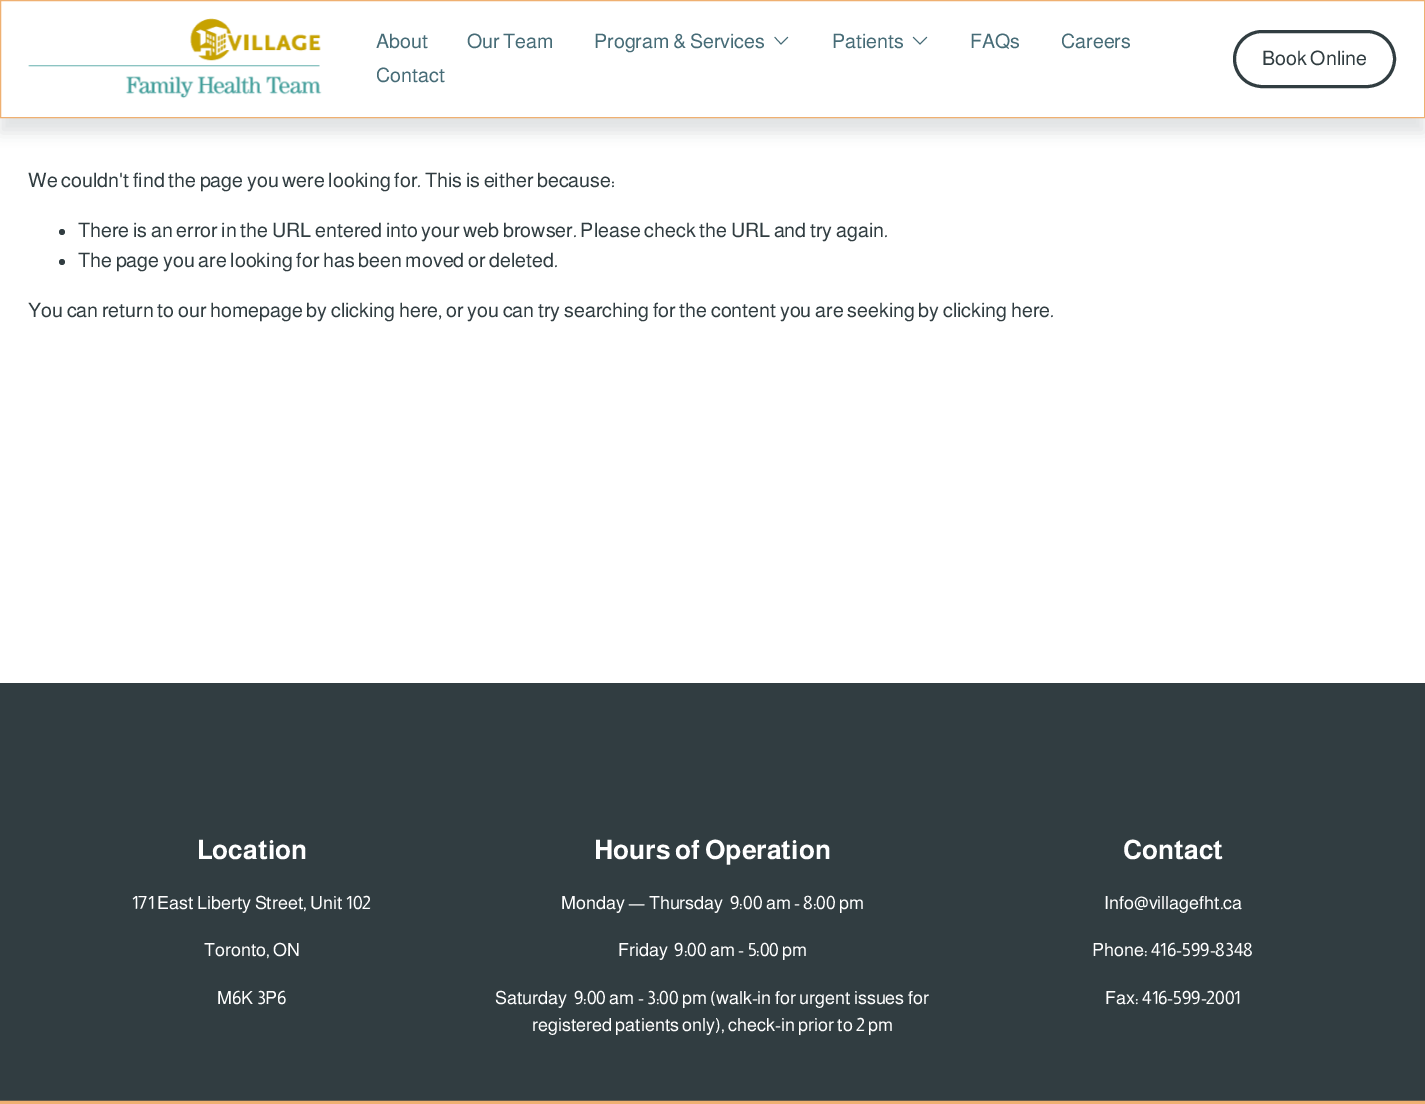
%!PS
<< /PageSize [1425 1104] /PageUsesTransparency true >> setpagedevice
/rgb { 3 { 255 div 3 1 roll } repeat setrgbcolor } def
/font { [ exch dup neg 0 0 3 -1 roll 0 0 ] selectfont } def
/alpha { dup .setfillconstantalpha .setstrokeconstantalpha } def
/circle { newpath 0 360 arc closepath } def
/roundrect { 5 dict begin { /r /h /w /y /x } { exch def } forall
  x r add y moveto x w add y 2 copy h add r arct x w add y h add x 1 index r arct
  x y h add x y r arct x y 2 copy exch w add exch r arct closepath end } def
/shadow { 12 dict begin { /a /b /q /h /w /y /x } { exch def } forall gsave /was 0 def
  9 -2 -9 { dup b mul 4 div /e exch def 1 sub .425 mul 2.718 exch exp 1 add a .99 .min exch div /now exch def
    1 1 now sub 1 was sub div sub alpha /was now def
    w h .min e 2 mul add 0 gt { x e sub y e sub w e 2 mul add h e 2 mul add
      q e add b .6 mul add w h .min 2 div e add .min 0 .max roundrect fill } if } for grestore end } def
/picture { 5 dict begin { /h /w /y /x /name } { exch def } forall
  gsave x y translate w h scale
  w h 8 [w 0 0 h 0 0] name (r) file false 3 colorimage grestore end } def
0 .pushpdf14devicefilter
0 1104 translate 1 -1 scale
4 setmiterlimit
255 255 255 rgb
0 0 1425 1104 rectfill
gsave
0 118 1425 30 rectclip
224 226 227 rgb
0 15 1425 118 0 7.5 1 shadow
grestore
239 176 113 rgb
0.5 0.5 1424 117 rectstroke
(img/1.rgb) 28 18 294 81 picture
71 108 119 rgb
0.9 setlinewidth
2 setlinecap
787.5 37.5 moveto 781 44 lineto 775 37.5 lineto stroke
926.5 37.5 moveto 920 44 lineto 913.5 37.5 lineto stroke
49 61 65 rgb
3 setlinewidth
0 setlinecap
1234.5 31.5 160 55 27.5 roundrect stroke
62 232 3 circle fill
62 262 3 circle fill
0 683 1425 418 rectfill
239 176 113 rgb
7.5 setlinewidth
2 setlinecap
-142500 893.5 moveto -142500 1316 lineto 0 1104.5 moveto 1425 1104.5 lineto stroke
/Almarai-Regular 20 font
71 108 119 rgb
[
  [(About) 376 48]
  [(Our Team) 467 48]
  [(Program & Services) 594 48]
  [(Patients) 832 48]
  [(FAQs) 970 48]
  [(Careers) 1061 48]
  [(Contact) 376 82]
] { aload pop moveto show } forall
49 61 65 rgb
[
  [(Book Online) 1262 65]
  [(We couldn't find the page you were looking for. This is either because:) 28 187]
  [(There is an error in the URL entered into your web browser. Please check the URL and try again.) 78 237]
  [(The page you are looking for has been moved or deleted.) 78 267]
  [(You can return to our homepage by clicking here, or you can try searching for the content you are seeking by clicking here.) 28 317]
] { aload pop moveto show } forall
/Almarai-Bold 26.75 font
255 255 255 rgb
197 859 moveto (Location) show
/Almarai-Regular 18.25 font
[
  [(171 East Liberty Street, Unit 102) 132 909]
  [(Toronto, ON) 204 956]
  [(M6K 3P6) 217 1004]
] { aload pop moveto show } forall
/Almarai-Bold 26.75 font
594 859 moveto (Hours of Operation) show
/Almarai-Regular 18.25 font
[
  [(Monday — Thursday  9:00 am - 8:00 pm) 561 909]
  [(Friday  9:00 am - 5:00 pm) 618 956]
  [(Saturday  9:00 am - 3:00 pm \(walk-in for urgent issues for) 495 1004]
  [(registered patients only\), check-in prior to 2 pm) 532 1031]
] { aload pop moveto show } forall
/Almarai-Bold 26.75 font
1123 859 moveto (Contact) show
/Almarai-Regular 18.25 font
[
  [(Info@villagefht.ca) 1104 909]
  [(Phone: 416-599-8348) 1092 956]
  [(Fax: 416-599-2001) 1105 1004]
] { aload pop moveto show } forall
.poppdf14devicefilter showpage
